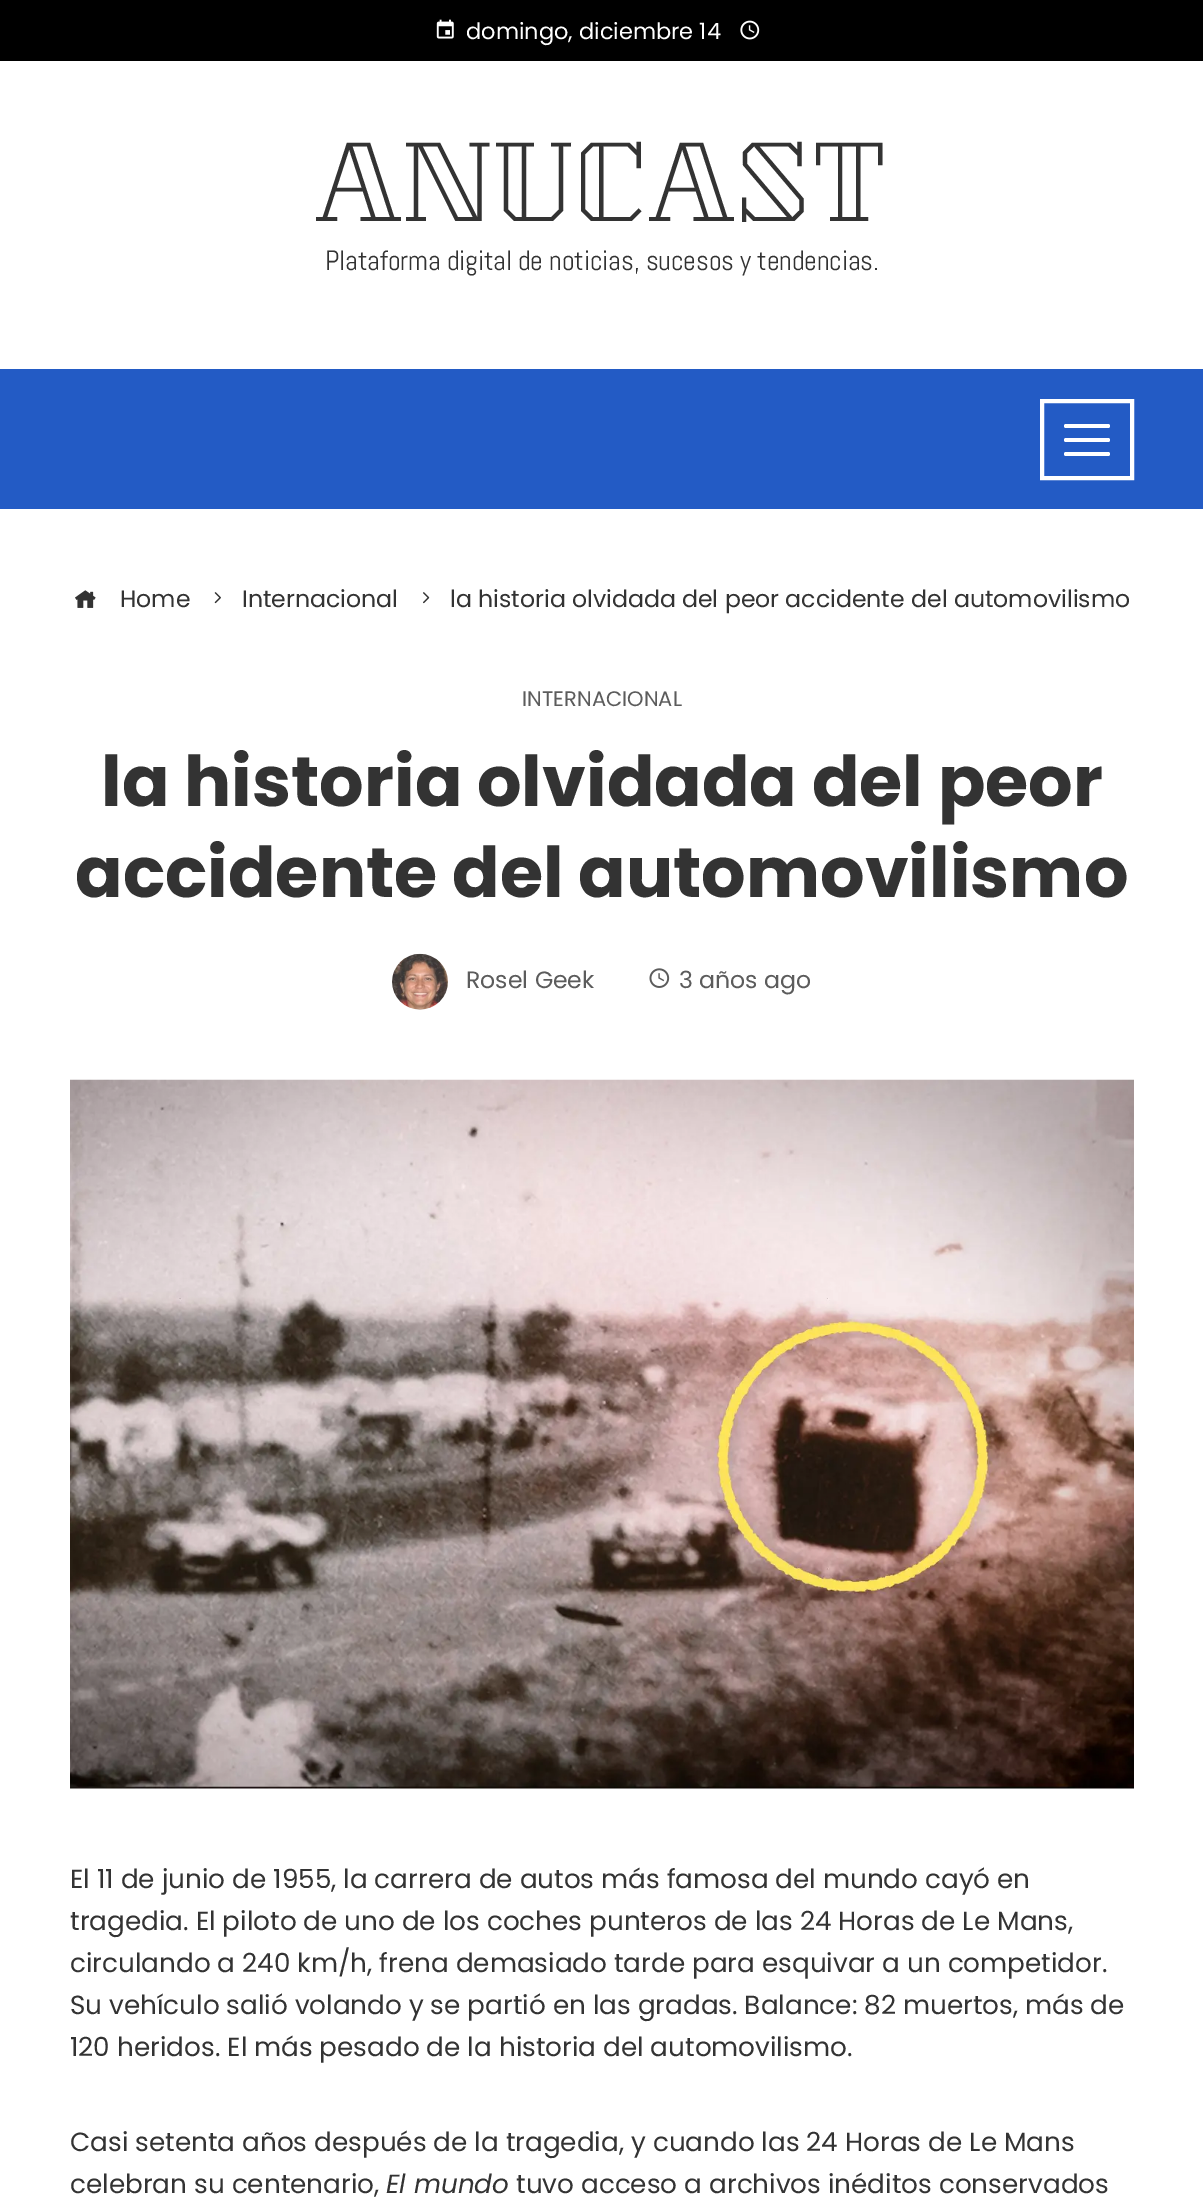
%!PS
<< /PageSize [1203 2208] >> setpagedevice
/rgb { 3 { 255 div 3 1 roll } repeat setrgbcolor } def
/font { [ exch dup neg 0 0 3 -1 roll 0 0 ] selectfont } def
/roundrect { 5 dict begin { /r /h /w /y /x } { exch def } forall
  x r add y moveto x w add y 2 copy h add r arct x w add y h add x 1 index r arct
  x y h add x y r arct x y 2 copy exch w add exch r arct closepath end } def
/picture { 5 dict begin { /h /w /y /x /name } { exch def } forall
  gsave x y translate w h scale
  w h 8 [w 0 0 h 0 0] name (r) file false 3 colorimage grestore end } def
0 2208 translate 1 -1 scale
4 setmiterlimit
255 255 255 rgb
0 0 1203 2208 rectfill
0 0 0 rgb
0 0 1203 61 rectfill
(img/1.rgb) 436 19 18 20 picture
(img/2.rgb) 740 20 20 20 picture
35 91 197 rgb
0 369 1203 140 rectfill
255 255 255 rgb
4 setlinewidth
1042 401 90 77 rectstroke
1064 424 46 4 2 roundrect fill
1064 438 46 4 2 roundrect fill
1064 452 46 4 2 roundrect fill
(img/3.rgb) 75 590 21 18 picture
(img/4.rgb) 214 592 7 12 picture
(img/5.rgb) 423 592 7 12 picture
(img/6.rgb) 392 953 56 57 picture
(img/7.rgb) 649 968 21 20 picture
(img/8.rgb) 70 1079 1064 710 picture
/Poppins-Regular 22.5 font
466 39 moveto (domingo, diciembre 14) show
/KumarOneOutline-Regular 98 font
51 51 51 rgb
315 221 moveto 1.75 0 (ANUCAST) ashow
/Abel-Regular 28 font
325 270 moveto -0.18 0 (Plataforma digital de noticias, sucesos y tendencias.) ashow
/Poppins-Regular 23.6 font
[
  [(Home) 120 607]
  [(Internacional) 242 607]
  [(la historia olvidada del peor accidente del automovilismo) 450 607]
] { aload pop moveto show } forall
/Poppins-Regular 21 font
92 92 92 rgb
522 706 moveto (INTERNACIONAL) show
/Poppins-Bold 70 font
51 51 51 rgb
101 806 moveto (la historia olvidada del peor) show
75 897 moveto (accidente del automovilismo) show
/Poppins-Regular 23.6 font
92 92 92 rgb
466 988 moveto (Rosel Geek) show
679 988 moveto (3 años ago) show
/Poppins-Regular 26.25 font
51 51 51 rgb
[
  [(El 11 de junio de 1955, la carrera de autos más famosa del mundo cayó en) 70 1888]
  [(tragedia. El piloto de uno de los coches punteros de las 24 Horas de Le Mans,) 70 1930]
  [(circulando a 240 km/h, frena demasiado tarde para esquivar a un competidor.) 70 1972]
  [(Su vehículo salió volando y se partió en las gradas. Balance: 82 muertos, más de) 70 2014]
  [(120 heridos. El más pesado de la historia del automovilismo.) 70 2056]
  [(Casi setenta años después de la tragedia, y cuando las 24 Horas de Le Mans) 70 2151]
  [(celebran su centenario,) 70 2193]
] { aload pop moveto show } forall
/Poppins-Italic 26.25 font
386 2193 moveto (El mundo) show
/Poppins-Regular 26.25 font
516 2193 moveto (tuvo acceso a archivos inéditos conservados) show
showpage
